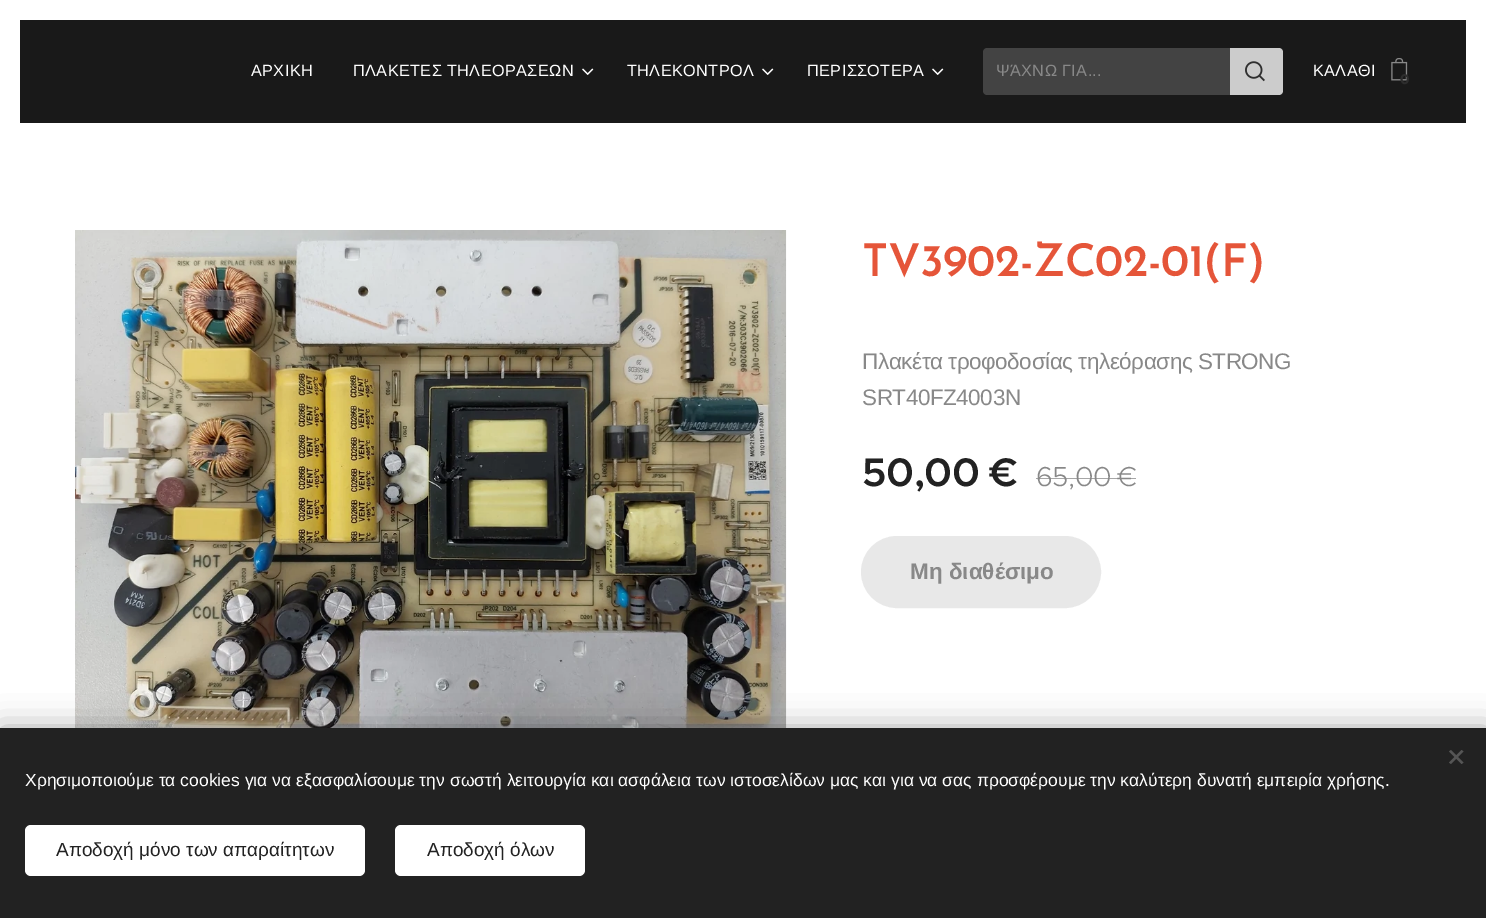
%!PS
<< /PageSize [1486 918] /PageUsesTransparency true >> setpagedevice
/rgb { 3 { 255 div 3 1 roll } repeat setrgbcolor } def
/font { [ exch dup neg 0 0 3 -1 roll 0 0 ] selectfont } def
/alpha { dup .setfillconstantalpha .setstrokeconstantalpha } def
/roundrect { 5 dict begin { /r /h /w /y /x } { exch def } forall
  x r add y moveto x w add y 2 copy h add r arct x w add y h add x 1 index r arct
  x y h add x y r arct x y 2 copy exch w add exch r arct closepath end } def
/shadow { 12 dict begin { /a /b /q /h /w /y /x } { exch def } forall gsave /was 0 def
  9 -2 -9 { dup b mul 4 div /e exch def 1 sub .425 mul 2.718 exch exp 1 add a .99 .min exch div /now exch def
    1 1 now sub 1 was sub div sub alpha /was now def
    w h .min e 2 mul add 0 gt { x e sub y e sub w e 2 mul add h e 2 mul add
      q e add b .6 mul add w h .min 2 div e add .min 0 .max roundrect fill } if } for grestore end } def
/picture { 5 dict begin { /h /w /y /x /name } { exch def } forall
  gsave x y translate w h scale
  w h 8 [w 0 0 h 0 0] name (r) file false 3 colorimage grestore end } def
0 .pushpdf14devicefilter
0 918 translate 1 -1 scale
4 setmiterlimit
255 255 255 rgb
0 0 1486 918 rectfill
25 25 25 rgb
20 20 1446 103 rectfill
(img/1.rgb) 582 68 12 7 picture
(img/1.rgb) 762 68 12 7 picture
(img/1.rgb) 932 68 12 7 picture
67 67 67 rgb
987 48 moveto 1230 48 lineto 1230 95 lineto 987 95 lineto 985 95 983 93 983 91 curveto 983 52 lineto 983 50 985 48 987 48 curveto closepath fill
204 204 204 rgb
1230 48 moveto 1279 48 lineto 1281 48 1283 50 1283 52 curveto 1283 91 lineto 1283 93 1281 95 1279 95 curveto 1230 95 lineto closepath fill
(img/2.rgb) 1245 61 20 21 picture
(img/3.rgb) 1391 58 17 23 picture
(img/4.rgb) 75 230 712 498 picture
232 232 232 rgb
862.5 537.5 237 69 34.5 roundrect gsave fill grestore
3 setlinewidth
stroke
0 0 0 rgb
0 728 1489 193 0 15.5 0.33 shadow
34 34 34 rgb
0 728 1486 190 rectfill
85 85 85 rgb
1449 762.5 moveto 1461.5 750 lineto 1463.5 751.5 lineto 1451 764 lineto closepath fill
1451 750 moveto 1463.5 762.5 lineto 1461.5 764 lineto 1449 751.5 lineto closepath fill
255 255 255 rgb
25 825 340 51 6 roundrect fill
395 825 190 51 6 roundrect fill
/LiberationSans-Regular 16.25 font
251 76 moveto 0.4 0 (ΑΡΧΙΚΗ) ashow
353 76 moveto 0.4 0 (ΠΛΑΚΕΤΕΣ ΤΗΛΕΟΡΑΣΕΩΝ) ashow
627 76 moveto 0.4 0 (ΤΗΛΕΚΟΝΤΡΟΛ) ashow
807 76 moveto 0.4 0 (ΠΕΡΙΣΣΟΤΕΡΑ) ashow
136 136 136 rgb
996 76 moveto 0.4 0 (ΨΆΧΝΩ ΓΙΑ...) ashow
255 255 255 rgb
1313 76 moveto 0.4 0 (ΚΑΛΑΘΙ) ashow
/Montserrat-Bold 14 font
45 45 45 rgb
1400 84 moveto (0) show
/JosefinSans-SemiBold 45 font
229 85 57 rgb
862 276 moveto -0.45 0 (TV3902-ZC02-01\(F\)) ashow
/LiberationSans-Regular 22.5 font
136 136 136 rgb
862 369 moveto -0.45 0 (Πλακέτα τροφοδοσίας τηλεόρασης STRONG) ashow
862 405 moveto -0.45 0 (SRT40FZ4003N) ashow
/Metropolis-SemiBold 40 font
34 34 34 rgb
862 486 moveto -0.45 0 (50,00 €) ashow
/Metropolis-Light 27.5 font
136 136 136 rgb
1036 486 moveto -0.45 0 (65,00 €) ashow
0.75 alpha
1036 478 100 1 rectfill
/LiberationSans-Bold 22.5 font
1 alpha
910 579 moveto (Μη διαθέσιμο) show
/LiberationSans-Regular 17.5 font
255 255 255 rgb
25 786 moveto (Χρησιμοποιούμε τα cookies για να εξασφαλίσουμε την σωστή λειτουργία και ασφάλεια των ιστοσελίδων μας και για να σας προσφέρουμε την καλύτερη δυνατή εμπειρία χρήσης.) show
/LiberationSans-Regular 19 font
34 34 34 rgb
56 856 moveto (Αποδοχή μόνο των απαραίτητων) show
427 856 moveto (Αποδοχή όλων) show
.poppdf14devicefilter showpage
